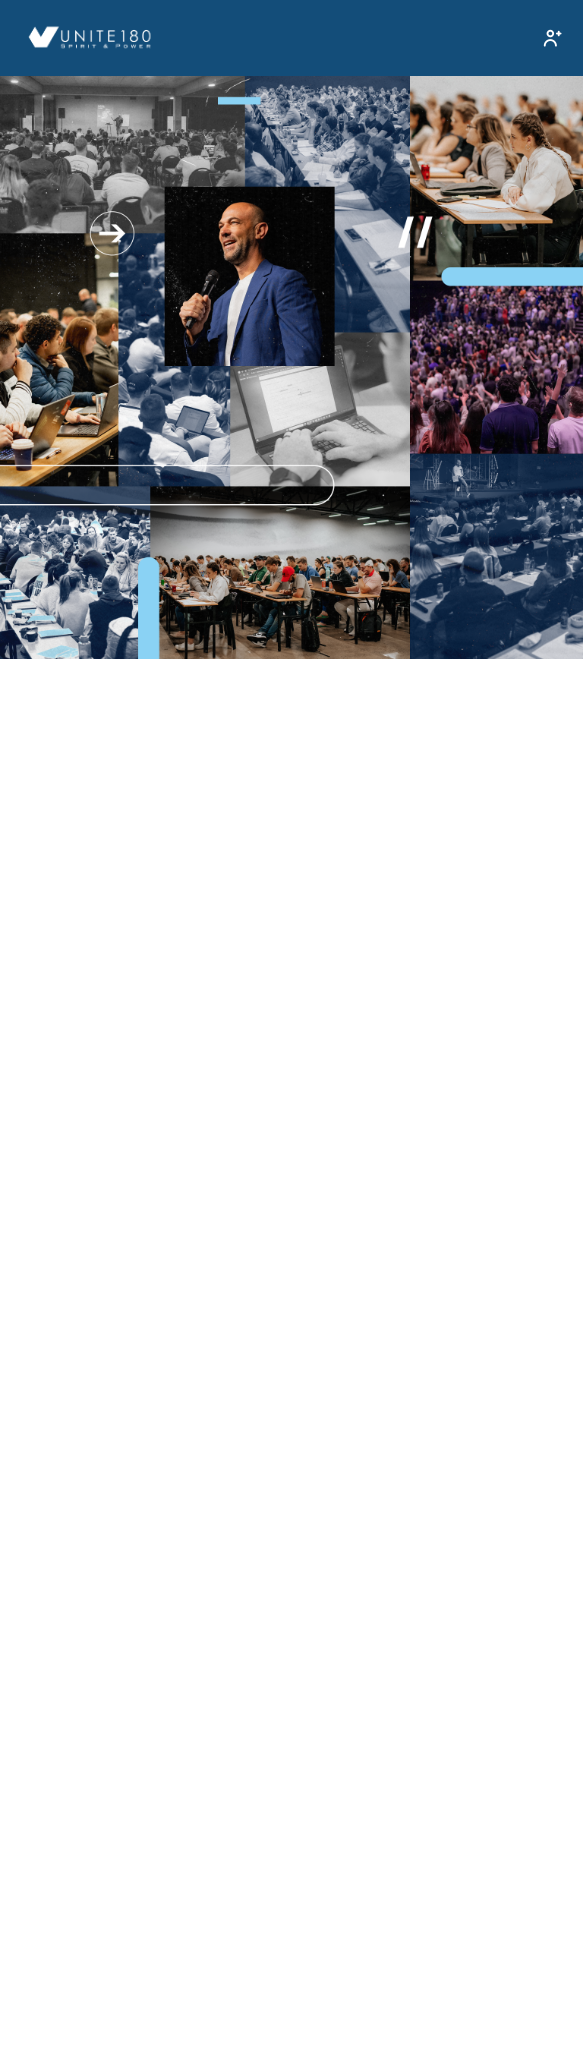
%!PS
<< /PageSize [583 2055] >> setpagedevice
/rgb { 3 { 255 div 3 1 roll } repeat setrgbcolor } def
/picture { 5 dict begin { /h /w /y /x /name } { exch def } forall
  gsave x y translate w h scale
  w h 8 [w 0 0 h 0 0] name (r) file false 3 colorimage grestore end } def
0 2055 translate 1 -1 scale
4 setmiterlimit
255 255 255 rgb
0 0 583 2055 rectfill
19 77 121 rgb
0 0 583 76 rectfill
(img/1.rgb) 28 26 123 23 picture
(img/2.rgb) 543 29 19 18 picture
(img/3.rgb) 0 76 583 583 picture
showpage
